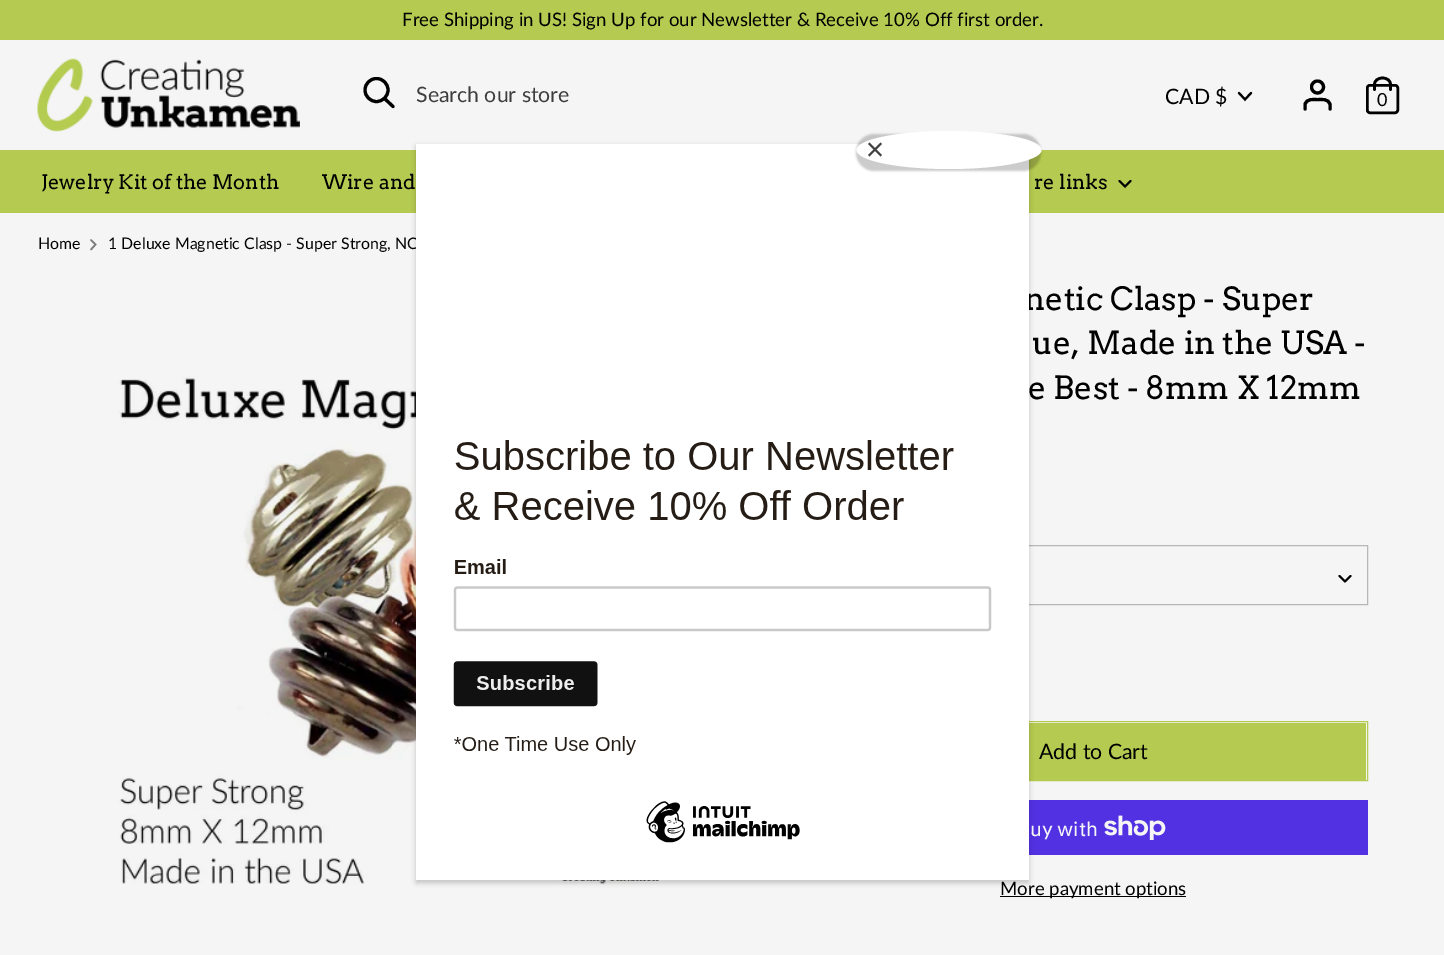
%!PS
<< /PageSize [1444 955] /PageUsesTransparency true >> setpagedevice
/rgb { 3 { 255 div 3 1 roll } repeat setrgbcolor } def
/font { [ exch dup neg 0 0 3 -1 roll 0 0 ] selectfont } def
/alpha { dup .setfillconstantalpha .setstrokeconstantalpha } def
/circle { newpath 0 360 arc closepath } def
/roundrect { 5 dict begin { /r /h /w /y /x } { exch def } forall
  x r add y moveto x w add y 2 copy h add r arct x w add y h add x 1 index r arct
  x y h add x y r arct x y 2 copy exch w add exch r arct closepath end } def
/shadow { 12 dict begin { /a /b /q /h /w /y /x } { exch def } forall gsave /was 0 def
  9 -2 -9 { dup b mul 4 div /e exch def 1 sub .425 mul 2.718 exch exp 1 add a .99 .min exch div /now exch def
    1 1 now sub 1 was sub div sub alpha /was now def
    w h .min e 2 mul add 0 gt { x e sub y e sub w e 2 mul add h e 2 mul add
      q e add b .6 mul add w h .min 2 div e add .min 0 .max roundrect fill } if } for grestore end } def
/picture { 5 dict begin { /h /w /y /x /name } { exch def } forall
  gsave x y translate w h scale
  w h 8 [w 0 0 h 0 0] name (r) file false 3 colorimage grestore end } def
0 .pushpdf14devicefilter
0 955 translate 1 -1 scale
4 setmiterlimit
245 245 245 rgb
0 0 1444 955 rectfill
180 202 80 rgb
0 0 1444 40 rectfill
(img/1.rgb) 37 58 263 74 picture
0 0 0 rgb
3.1 setlinewidth
376.5 90 11.5 circle stroke
1 setlinecap
393 106.5 moveto 384.5 98.5 lineto stroke
2.1 setlinewidth
1239 93 moveto 1245 99.5 lineto 1251 93 lineto stroke
3.1 setlinewidth
1330 109 moveto 1330 104.5 lineto 1328.5 98.5 1322 99.5 1317.5 99.5 curveto 1313 99.5 1306.5 98.5 1305 104.5 curveto 1305 109 lineto stroke
0 setlinecap
1317.5 87 6 circle stroke
2.5 setlinewidth
1367.25 85.25 30.5 27.5 2.75 roundrect stroke
2.7 setlinewidth
1 setlinecap
1374.5 89.5 moveto 1374.5 84.5 lineto 1374.5 80.5 1378 78 1382.5 78 curveto 1387 78 1390.5 80.5 1390.5 84.5 curveto 1390.5 89.5 lineto stroke
180 202 80 rgb
0 150 1444 63 rectfill
0 0 0 rgb
1.9 setlinewidth
1119.5 181 moveto 1125 186.5 lineto 1130.5 181 lineto stroke
123 123 123 rgb
1.6 setlinewidth
91 249.5 moveto 95.5 244.5 lineto 91 240 lineto stroke
(img/3.rgb) 118 375 585 509 picture
183 183 183 rgb
1 setlinewidth
0 setlinecap
819.5 545.5 548 59 rectstroke
180 202 80 rgb
819.5 721.5 548 59 rectstroke
1029 723 337 57 rectfill
81 49 226 rgb
1029 800 339 55 rectfill
0 0 0 rgb
416 146 613 737 0 2.5 0.2 shadow
1.9 setlinewidth
1 setlinecap
1 setlinejoin
1339.5 576 moveto 1345 581.5 lineto 1350.5 576 lineto stroke
(img/4.rgb) 1104 815 62 25 picture
1000 896 186 1 rectfill
/Lato-Regular 18.6 font
402 26 moveto (Free Shipping in US! Sign Up for our Newsletter & Receive 10% Off first order.) show
/Lato-Regular 21.25 font
61 61 61 rgb
416 102 moveto (Search our store) show
0 0 0 rgb
1165 104 moveto (CAD $) show
/Lato-Regular 18 font
1377 106 moveto (0) show
/Arvo-Regular 20 font
[
  [(Jewelry Kit of the Month) 41 189]
  [(Wire and) 322 189]
  [(re links) 1034 189]
] { aload pop moveto show } forall
/Lato-Regular 15.9 font
38 249 moveto (Home) show
108 249 moveto (1 Deluxe Magnetic Clasp - Super Strong, NO) show
/Arvo-Regular 31.9 font
1024 310 moveto (netic Clasp - Super) show
(img/2.rgb) 416 144 613 736 picture
856 134 185 37 18.5 1 0.2 shadow
255 255 255 rgb
949 131 moveto 1000 131 1041.5 139.5 1041.5 150 curveto 1041.5 160.5 1000 169 949 169 curveto 898 169 856.5 160.5 856.5 150 curveto 856.5 139.5 898 131 949 131 curveto closepath fill
65 65 65 rgb
880.5 142.5 moveto 882 144 lineto 869.5 156.5 lineto 868 155 lineto closepath fill
868 144 moveto 869.5 142.5 lineto 882 155 lineto 880.5 156.5 lineto closepath fill
0 0 0 rgb
1032 354 moveto (ue, Made in the USA -) show
1028 399 moveto (e Best - 8mm X 12mm) show
/Lato-Regular 21.25 font
1039 759 moveto (Add to Cart) show
/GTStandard-Regular 20 font
245 245 245 rgb
1030 836 moveto (uy with) show
/Lato-Regular 18.6 font
0 0 0 rgb
1000 895 moveto (More payment options) show
.poppdf14devicefilter showpage
